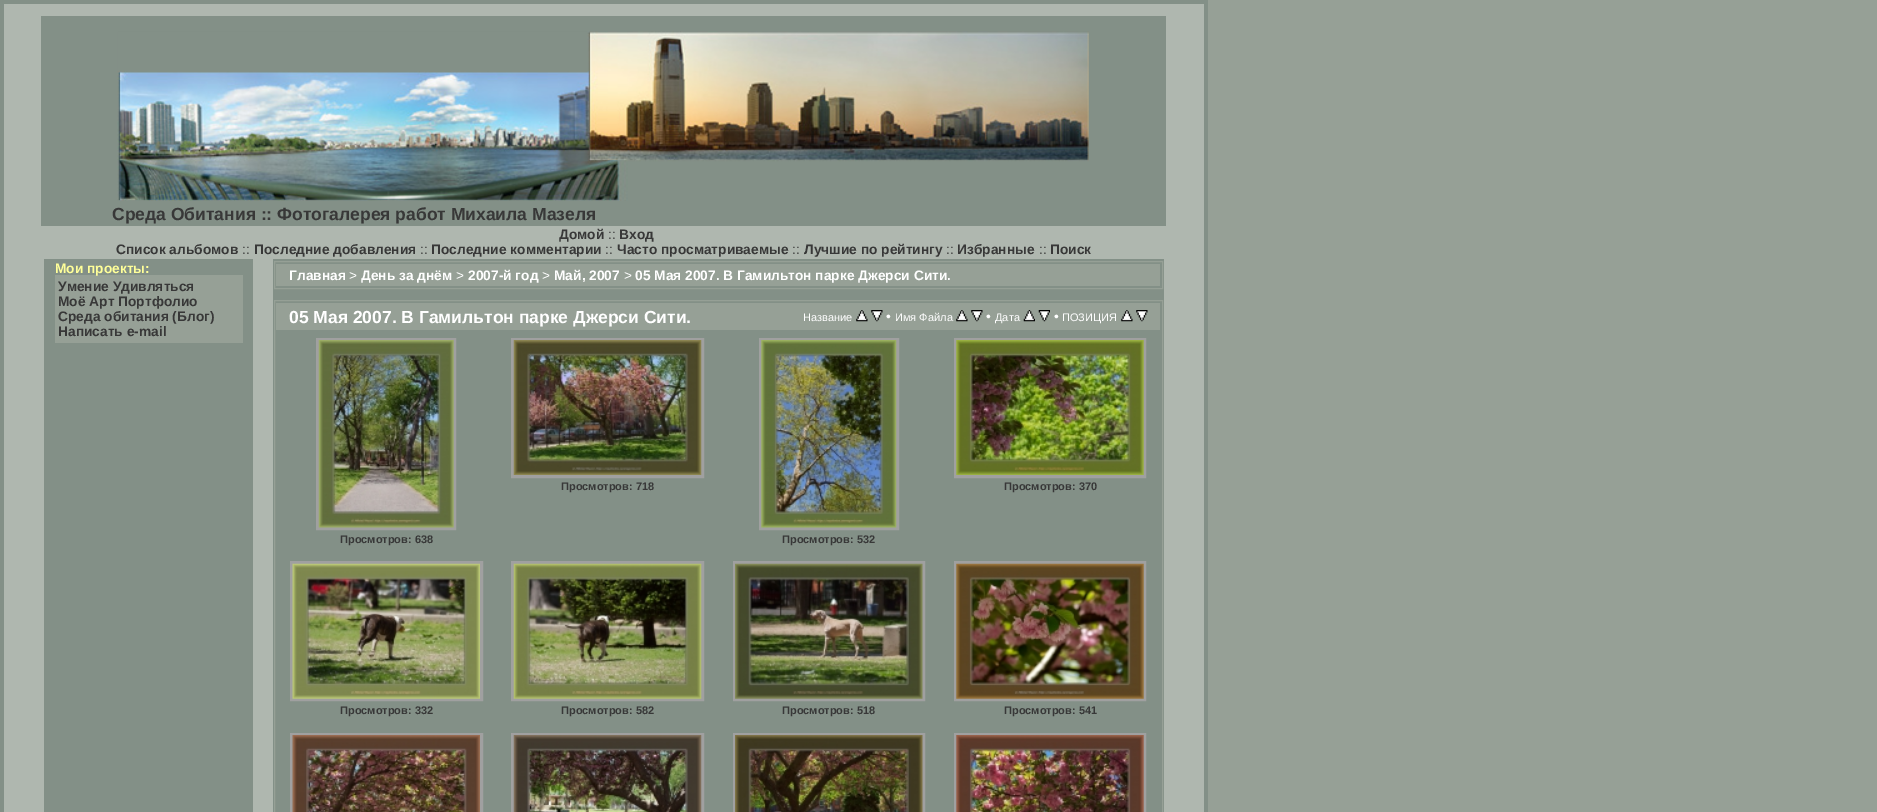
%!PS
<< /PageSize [1877 812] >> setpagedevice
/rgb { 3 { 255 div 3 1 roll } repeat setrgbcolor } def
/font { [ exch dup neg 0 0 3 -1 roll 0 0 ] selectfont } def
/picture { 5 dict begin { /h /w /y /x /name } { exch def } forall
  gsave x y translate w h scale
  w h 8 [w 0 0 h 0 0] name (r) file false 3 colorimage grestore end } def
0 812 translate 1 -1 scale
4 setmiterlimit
150 160 150 rgb
0 0 1877 812 rectfill
[
  [0 0 1208 812 131 144 135]
  [4 4 1200 808 175 183 175]
  [41 16 1125 210 131 144 135]
] { aload pop rgb rectfill } forall
(img/1.rgb) 117 31 972 170 picture
[
  [44 259 209 553 131 144 135]
  [55 275 188 68 150 160 150]
  [273 259 891 553 131 144 135]
] { aload pop rgb rectfill } forall
150 160 150 rgb
274.5 261.5 888 27 rectstroke
276 264 884 22 rectfill
274.5 300.5 888 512 rectstroke
276 303 884 27 rectfill
(img/2.rgb) 856 310 12 12 picture
(img/3.rgb) 871 310 12 12 picture
(img/2.rgb) 956 310 12 12 picture
(img/3.rgb) 971 310 12 12 picture
(img/4.rgb) 1023 310 12 12 picture
(img/5.rgb) 1038 310 12 12 picture
(img/2.rgb) 1121 310 12 12 picture
(img/3.rgb) 1136 310 12 12 picture
160 160 160 rgb
3 setlinewidth
512.5 339.5 190 137 rectstroke
(img/6.rgb) 513 340 189 135 picture
955.5 339.5 189 137 rectstroke
(img/7.rgb) 956 340 188 135 picture
317.5 339.5 137 189 rectstroke
(img/8.rgb) 318 340 136 188 picture
760.5 339.5 137 189 rectstroke
(img/9.rgb) 761 340 136 188 picture
291.5 562.5 190 137 rectstroke
(img/10.rgb) 292 563 188 136 picture
512.5 562.5 190 137 rectstroke
(img/11.rgb) 513 563 189 136 picture
734.5 562.5 189 137 rectstroke
(img/12.rgb) 735 563 188 136 picture
955.5 562.5 189 137 rectstroke
(img/13.rgb) 956 563 188 136 picture
291.5 734.5 190 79 rectstroke
(img/14.rgb) 292 735 188 77 picture
512.5 734.5 190 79 rectstroke
(img/15.rgb) 513 735 189 77 picture
734.5 734.5 189 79 rectstroke
(img/16.rgb) 735 735 188 77 picture
955.5 734.5 189 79 rectstroke
(img/17.rgb) 956 735 188 77 picture
/LiberationSans-Bold 17.5 font
56 56 56 rgb
112 220 moveto (Среда Обитания :: Фотогалерея работ Михаила Мазеля) show
/LiberationSans-Bold 13.75 font
559 239 moveto (Домой) show
/LiberationSans-Regular 13.75 font
608 239 moveto (::) show
/LiberationSans-Bold 13.75 font
619 239 moveto (Вход) show
116 254 moveto (Список альбомов) show
/LiberationSans-Regular 13.75 font
242 254 moveto (::) show
/LiberationSans-Bold 13.75 font
254 254 moveto (Последние добавления) show
/LiberationSans-Regular 13.75 font
420 254 moveto (::) show
/LiberationSans-Bold 13.75 font
431 254 moveto (Последние комментарии) show
/LiberationSans-Regular 13.75 font
605 254 moveto (::) show
/LiberationSans-Bold 13.75 font
617 254 moveto (Часто просматриваемые) show
/LiberationSans-Regular 13.75 font
792 254 moveto (::) show
/LiberationSans-Bold 13.75 font
804 254 moveto (Лучшие по рейтингу) show
/LiberationSans-Regular 13.75 font
946 254 moveto (::) show
/LiberationSans-Bold 13.75 font
957 254 moveto (Избранные) show
/LiberationSans-Regular 13.75 font
1039 254 moveto (::) show
/LiberationSans-Bold 13.75 font
1050 254 moveto (Поиск) show
255 255 153 rgb
55 273 moveto (Мои проекты:) show
56 56 56 rgb
[
  [(Умение Удивляться) 58 291]
  [(Моё Арт Портфолио) 58 306]
  [(Среда обитания \(Блог\)) 58 321]
  [(Написать e-mail) 58 336]
] { aload pop moveto show } forall
255 255 255 rgb
289 280 moveto (Главная) show
/LiberationSans-Regular 13.75 font
349 280 moveto (>) show
/LiberationSans-Bold 13.75 font
361 280 moveto (День за днём) show
/LiberationSans-Regular 13.75 font
456 280 moveto (>) show
/LiberationSans-Bold 13.75 font
468 280 moveto (2007-й год) show
/LiberationSans-Regular 13.75 font
542 280 moveto (>) show
/LiberationSans-Bold 13.75 font
554 280 moveto (Май, 2007) show
/LiberationSans-Regular 13.75 font
624 280 moveto (>) show
/LiberationSans-Bold 13.75 font
635 280 moveto (05 Мая 2007. В Гамильтон парке Джерси Сити.) show
/LiberationSans-Bold 17.5 font
289 323 moveto (05 Мая 2007. В Гамильтон парке Джерси Сити.) show
/LiberationSans-Regular 11 font
803 321 moveto (Название) show
/LiberationSans-Regular 13.75 font
886 321 moveto (•) show
/LiberationSans-Regular 11 font
895 321 moveto (Имя Файла) show
/LiberationSans-Regular 13.75 font
986 321 moveto (•) show
/LiberationSans-Regular 11 font
995 321 moveto (Дата) show
/LiberationSans-Regular 13.75 font
1054 321 moveto (•) show
/LiberationSans-Regular 11 font
1062 321 moveto (ПОЗИЦИЯ) show
/LiberationSans-Bold 11 font
56 56 56 rgb
[
  [(Просмотров: 718) 561 490]
  [(Просмотров: 370) 1004 490]
  [(Просмотров: 638) 340 543]
  [(Просмотров: 532) 782 543]
  [(Просмотров: 332) 340 714]
  [(Просмотров: 582) 561 714]
  [(Просмотров: 518) 782 714]
  [(Просмотров: 541) 1004 714]
] { aload pop moveto show } forall
showpage
